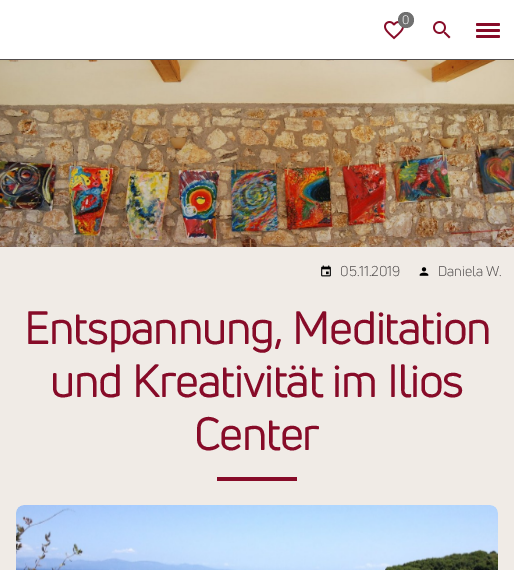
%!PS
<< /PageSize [514 570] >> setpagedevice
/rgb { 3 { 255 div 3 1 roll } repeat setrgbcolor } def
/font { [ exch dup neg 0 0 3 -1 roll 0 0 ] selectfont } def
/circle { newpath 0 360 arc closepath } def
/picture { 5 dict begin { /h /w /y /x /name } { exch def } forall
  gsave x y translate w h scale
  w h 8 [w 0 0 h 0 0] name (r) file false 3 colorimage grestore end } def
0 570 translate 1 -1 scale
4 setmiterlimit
240 235 230 rgb
0 0 514 570 rectfill
255 255 255 rgb
0 0 514 59 rectfill
81 77 77 rgb
0 59 514 1 rectfill
(img/1.rgb) 384 21 20 19 picture
112 112 112 rgb
406 20 8 circle fill
(img/2.rgb) 433 21 18 18 picture
135 11 40 rgb
477.5 23 moveto 488 23 lineto 488 26 lineto 477.5 26 lineto 476.5 26 476 25.5 476 24.5 curveto 476 23.5 476.5 23 477.5 23 curveto closepath fill
488 23 moveto 498.5 23 lineto 499.5 23 500 23.5 500 24.5 curveto 500 25.5 499.5 26 498.5 26 curveto 488 26 lineto closepath fill
477.5 29 moveto 488 29 lineto 488 32 lineto 477.5 32 lineto 476.5 32 476 31.5 476 30.5 curveto 476 29.5 476.5 29 477.5 29 curveto closepath fill
488 29 moveto 498.5 29 lineto 499.5 29 500 29.5 500 30.5 curveto 500 31.5 499.5 32 498.5 32 curveto 488 32 lineto closepath fill
477.5 35 moveto 488 35 lineto 488 38 lineto 477.5 38 lineto 476.5 38 476 37.5 476 36.5 curveto 476 35.5 476.5 35 477.5 35 curveto closepath fill
488 35 moveto 498.5 35 lineto 499.5 35 500 35.5 500 36.5 curveto 500 37.5 499.5 38 498.5 38 curveto 488 38 lineto closepath fill
(img/3.rgb) 0 60 514 187 picture
(img/4.rgb) 321 265 10 12 picture
(img/5.rgb) 419 267 10 9 picture
217 477 80 4 rectfill
(img/6.rgb) 16 505 482 65 picture
/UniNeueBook-Regular 12 font
255 255 255 rgb
402 24 moveto (0) show
/UniNeueBook-Regular 14 font
81 77 77 rgb
340 276 moveto (05.11.2019) show
438 276 moveto (Daniela W.) show
/UniNeueBook-Bold 44 font
135 11 40 rgb
[
  [(Entspannung, Meditation) 24 344]
  [(und Kreativität im Ilios) 50 397]
  [(Center) 194 450]
] { aload pop moveto show } forall
showpage
